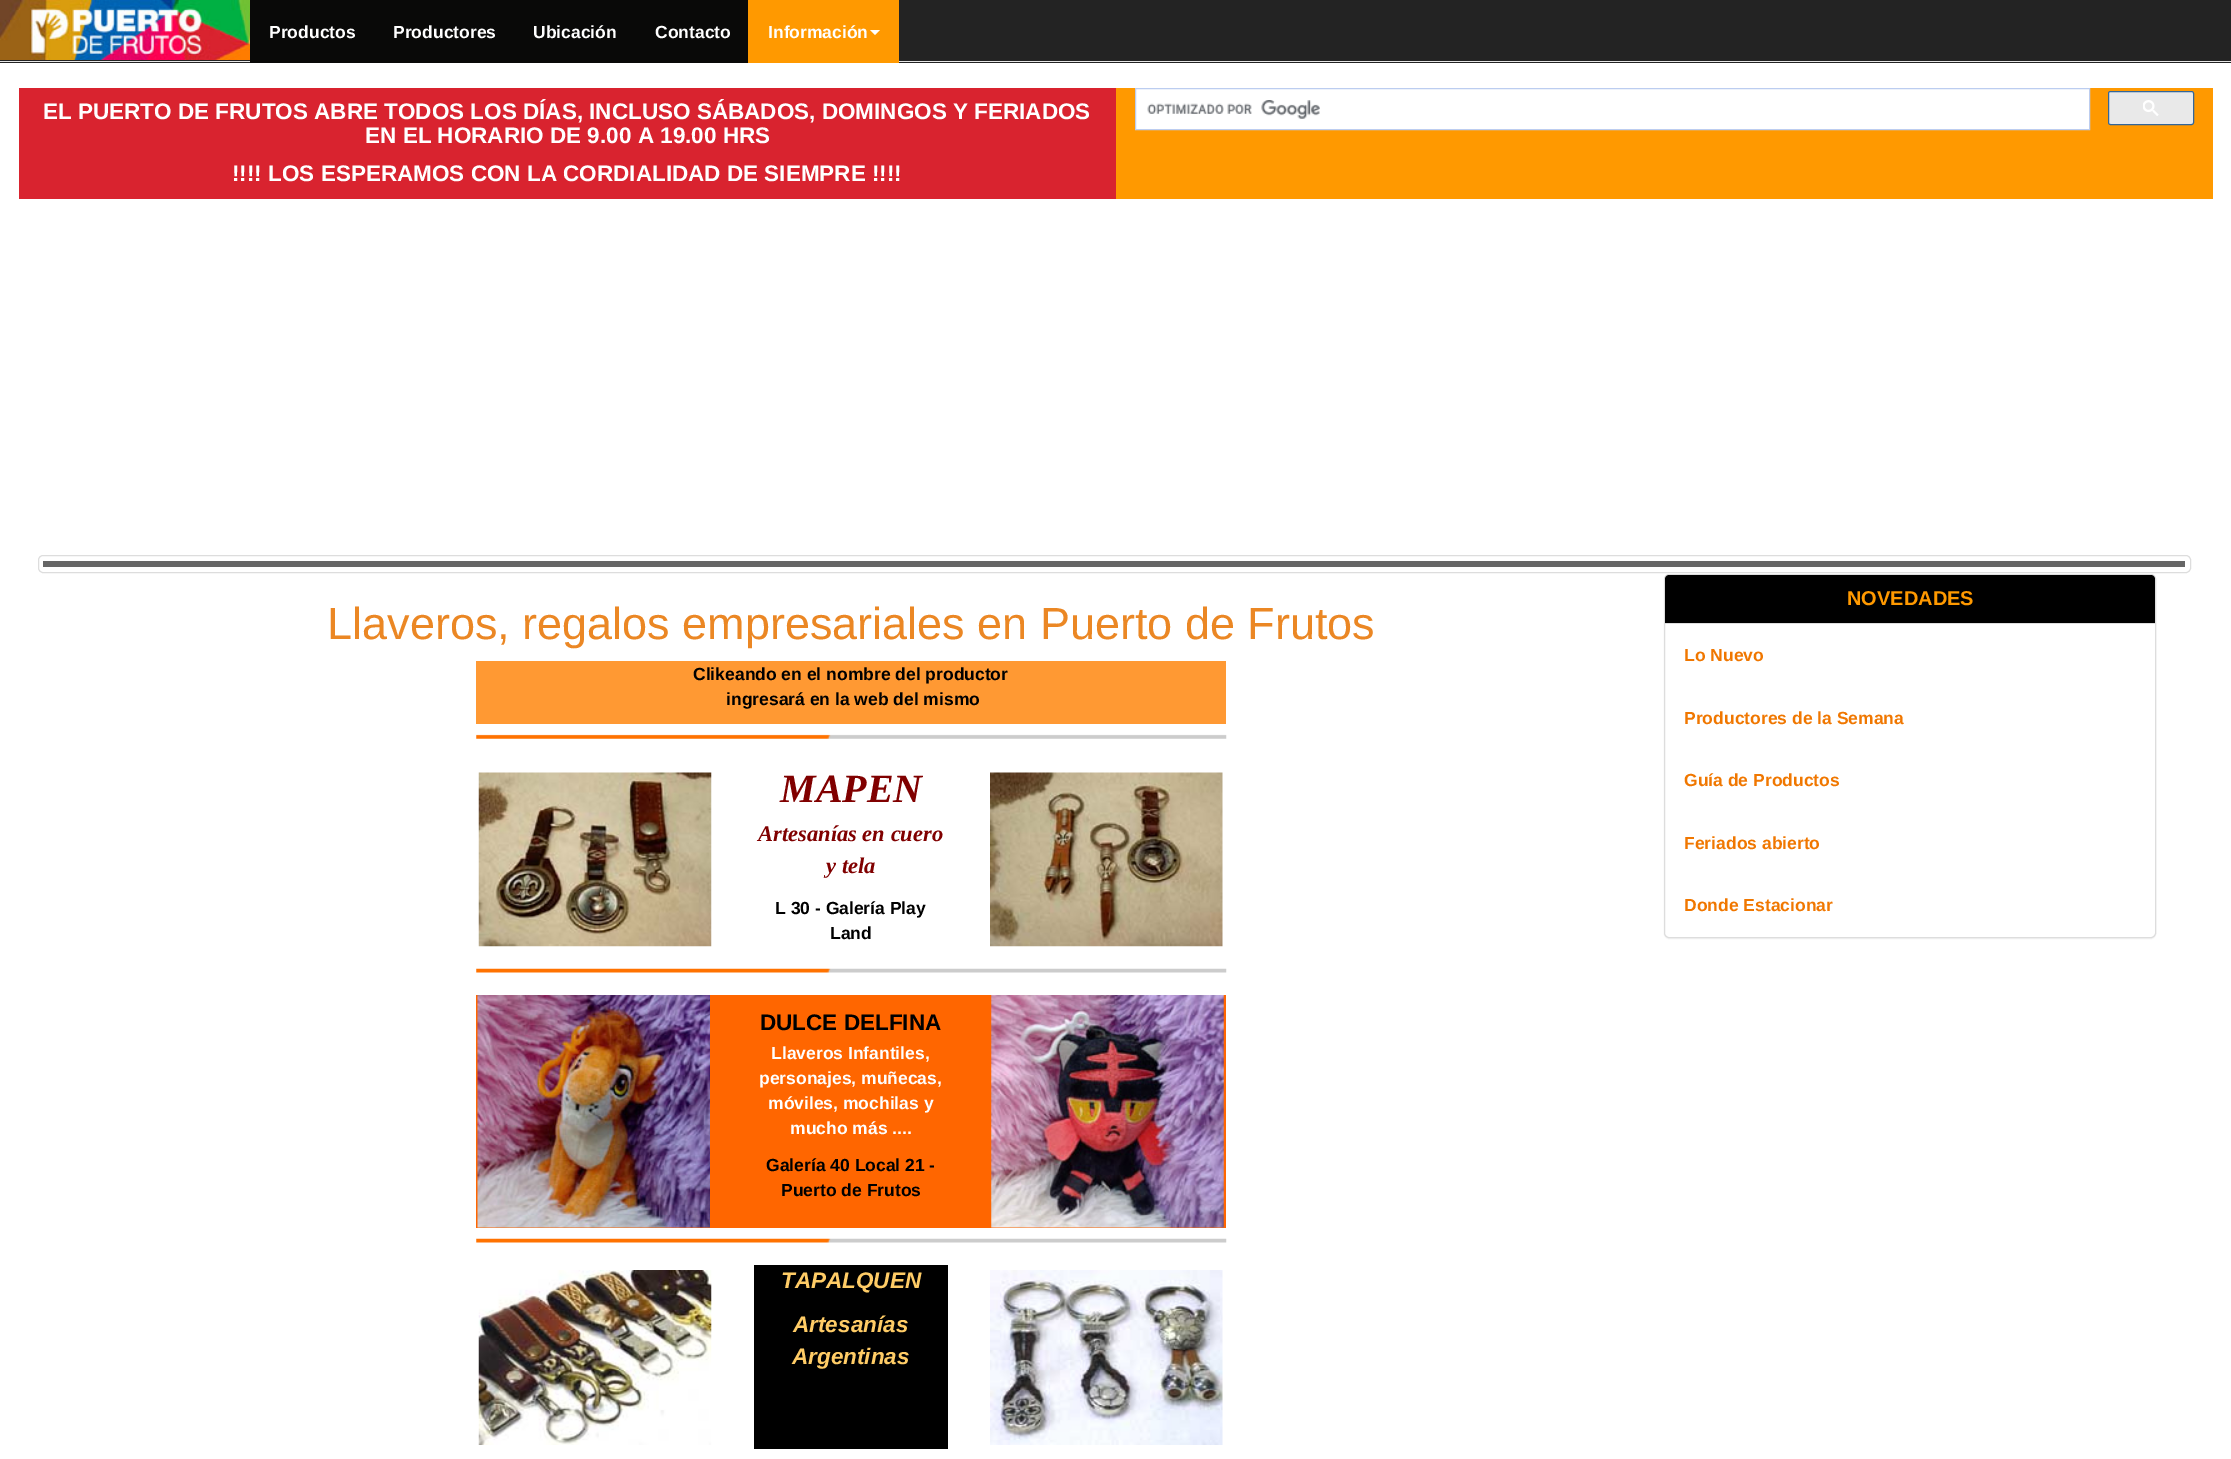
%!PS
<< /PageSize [2231 1459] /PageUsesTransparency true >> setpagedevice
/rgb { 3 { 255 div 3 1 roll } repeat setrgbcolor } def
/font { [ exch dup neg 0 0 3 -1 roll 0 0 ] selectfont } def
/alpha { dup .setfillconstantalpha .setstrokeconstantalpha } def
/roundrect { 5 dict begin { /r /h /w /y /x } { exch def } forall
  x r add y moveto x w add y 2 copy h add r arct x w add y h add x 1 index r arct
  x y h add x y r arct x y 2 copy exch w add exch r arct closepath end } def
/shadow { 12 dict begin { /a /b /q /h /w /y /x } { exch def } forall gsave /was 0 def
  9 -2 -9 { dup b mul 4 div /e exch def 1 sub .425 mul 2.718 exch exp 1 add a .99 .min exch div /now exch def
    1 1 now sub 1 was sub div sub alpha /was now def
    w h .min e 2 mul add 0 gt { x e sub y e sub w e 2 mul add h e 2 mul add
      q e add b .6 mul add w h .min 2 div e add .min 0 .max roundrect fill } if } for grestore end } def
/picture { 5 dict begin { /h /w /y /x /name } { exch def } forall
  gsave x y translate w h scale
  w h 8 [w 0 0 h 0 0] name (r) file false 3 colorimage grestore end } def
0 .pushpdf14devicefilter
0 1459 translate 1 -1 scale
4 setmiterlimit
255 255 255 rgb
0 0 2231 1459 rectfill
35 35 35 rgb
0 0 2231 63 rectfill
231 231 231 rgb
0 61 2231 1 rectfill
(img/1.rgb) 0 0 250 60 picture
9 9 8 rgb
250 0 498 63 rectfill
255 153 0 rgb
748 0 151 63 rectfill
255 255 255 rgb
870 30 moveto 880 30 lineto 875 35 lineto closepath fill
255 153 51 rgb
476 661 750 63 rectfill
(img/2.rgb) 476 734 751 5 picture
(img/3.rgb) 478 772 234 175 picture
(img/4.rgb) 990 772 233 175 picture
(img/5.rgb) 476 968 751 5 picture
255 102 0 rgb
476 995 750 233 rectfill
(img/6.rgb) 477 995 233 233 picture
(img/7.rgb) 991 995 233 233 picture
(img/5.rgb) 476 1238 751 5 picture
(img/8.rgb) 478 1270 234 175 picture
0 0 0 rgb
754 1265 194 184 rectfill
(img/9.rgb) 990 1270 233 175 picture
221 221 221 rgb
38.5 555.5 2152 17 4.5 roundrect stroke
0 0 0 rgb
1664 575 492 364 5 0.5 0.05 shadow
255 255 255 rgb
1664.5 574.5 491 363 4.5 roundrect gsave fill grestore
221 221 221 rgb
stroke
0 0 0 rgb
1669 575 moveto 2151 575 lineto 2153 575 2155 577 2155 579 curveto 2155 624 lineto 1665 624 lineto 1665 579 lineto 1665 577 1667 575 1669 575 curveto closepath fill
[
  [1665 623 490 1 221 221 221]
  [1116 88 1097 111 255 153 0]
  [19 88 1097 111 217 35 47]
] { aload pop rgb rectfill } forall
255 255 255 rgb
1135.5 88.5 moveto 2089.5 88.5 lineto 2089.5 129.5 lineto 1135.5 129.5 lineto closepath gsave fill grestore
188 205 240 rgb
stroke
(img/10.rgb) 1147 100 173 19 picture
233 233 233 rgb
2108.5 91.5 85 33 2 roundrect gsave fill grestore
51 102 153 rgb
stroke
(img/11.rgb) 2143 100 16 16 picture
102 102 102 rgb
43 561 2142 6 rectfill
/LiberationSans-Bold 17.5 font
255 255 255 rgb
[
  [(Productos) 269 38]
  [(Productores) 393 38]
  [(Ubicación) 533 38]
  [(Contacto) 655 38]
  [(Información) 768 38]
] { aload pop moveto show } forall
/LiberationSans-Regular 45 font
235 135 36 rgb
327 639 moveto (Llaveros, regalos empresariales en Puerto de Frutos) show
/LiberationSans-Bold 17.5 font
0 0 0 rgb
693 680 moveto (Clikeando en el nombre del productor) show
726 705 moveto (ingresará en la web del mismo) show
/LiberationSerif-BoldItalic 40 font
128 0 0 rgb
780 802 moveto (MAPEN) show
/LiberationSerif-BoldItalic 22.5 font
758 841 moveto (Artesanías en cuero) show
826 873 moveto (y tela) show
/LiberationSans-Bold 17.5 font
0 0 0 rgb
775 914 moveto (L 30 - Galería Play) show
830 939 moveto (Land) show
/LiberationSans-Bold 22.5 font
760 1030 moveto (DULCE DELFINA) show
/LiberationSans-Bold 17.5 font
255 255 255 rgb
[
  [(Llaveros Infantiles,) 771 1059]
  [(personajes, muñecas,) 759 1084]
  [(móviles, mochilas y) 768 1109]
  [(mucho más ....) 790 1134]
] { aload pop moveto show } forall
0 0 0 rgb
766 1171 moveto (Galería 40 Local 21 -) show
781 1196 moveto (Puerto de Frutos) show
/LiberationSans-BoldItalic 22.5 font
255 204 102 rgb
[
  [(TAPALQUEN) 781 1288]
  [(Artesanías) 793 1332]
  [(Argentinas) 792 1364]
] { aload pop moveto show } forall
/LiberationSans-Bold 20 font
255 153 0 rgb
1847 605 moveto (NOVEDADES) show
/LiberationSans-Bold 17.5 font
240 119 0 rgb
[
  [(Lo Nuevo) 1684 661]
  [(Productores de la Semana) 1684 724]
  [(Guía de Productos) 1684 786]
  [(Feriados abierto) 1684 849]
  [(Donde Estacionar) 1684 911]
] { aload pop moveto show } forall
/LiberationSans-Bold 22.5 font
255 255 255 rgb
[
  [(EL PUERTO DE FRUTOS ABRE TODOS LOS DÍAS, INCLUSO SÁBADOS, DOMINGOS Y FERIADOS) 43 119]
  [(EN EL HORARIO DE 9.00 A 19.00 HRS) 365 143]
  [(!!!! LOS ESPERAMOS CON LA CORDIALIDAD DE SIEMPRE !!!!) 232 181]
] { aload pop moveto show } forall
.poppdf14devicefilter showpage
